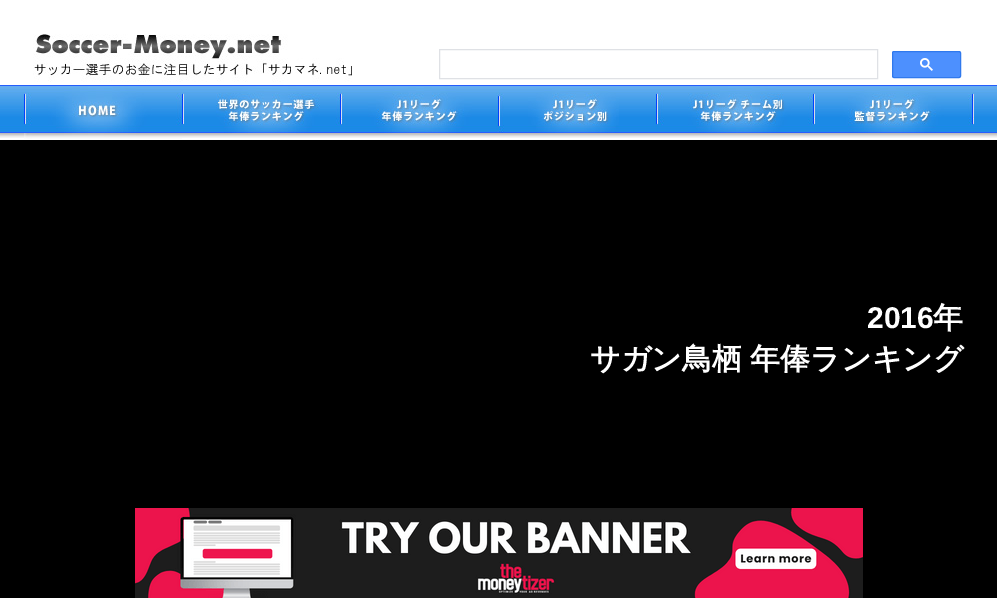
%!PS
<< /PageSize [997 598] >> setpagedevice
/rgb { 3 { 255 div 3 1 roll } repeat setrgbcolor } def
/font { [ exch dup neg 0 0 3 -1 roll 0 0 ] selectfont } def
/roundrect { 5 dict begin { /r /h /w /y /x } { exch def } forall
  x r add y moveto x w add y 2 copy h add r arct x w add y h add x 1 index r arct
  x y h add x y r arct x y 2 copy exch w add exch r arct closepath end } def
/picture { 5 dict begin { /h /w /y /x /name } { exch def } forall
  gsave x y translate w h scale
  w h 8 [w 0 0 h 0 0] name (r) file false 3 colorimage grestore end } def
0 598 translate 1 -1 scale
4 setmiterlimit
255 255 255 rgb
0 0 997 598 rectfill
(img/1.rgb) 33 34 319 48 picture
223 225 229 rgb
439.5 49.5 438 29 rectstroke
77 144 254 rgb
892.5 51.5 68 26 1.5 roundrect gsave fill grestore
48 121 237 rgb
stroke
(img/2.rgb) 920 58 13 13 picture
(img/3.rgb) 0 85 997 53 picture
(img/4.rgb) 24 86 158 53 picture
(img/5.rgb) 182 86 158 48 picture
(img/6.rgb) 340 86 158 48 picture
(img/7.rgb) 498 87 121 46 picture
(img/8.rgb) 656 86 158 47 picture
(img/9.rgb) 814 87 160 46 picture
0 0 0 rgb
0 140 997 458 rectfill
(img/10.rgb) 135 508 728 90 picture
/LiberationSans-Bold 30 font
255 255 255 rgb
867 328 moveto (2016) show
/WenQuanYiZenHei-Bold 30 font
933 328 moveto (年) show
590 369 moveto -1 0 32 (サガン鳥栖 年俸ランキング) widthshow
showpage
